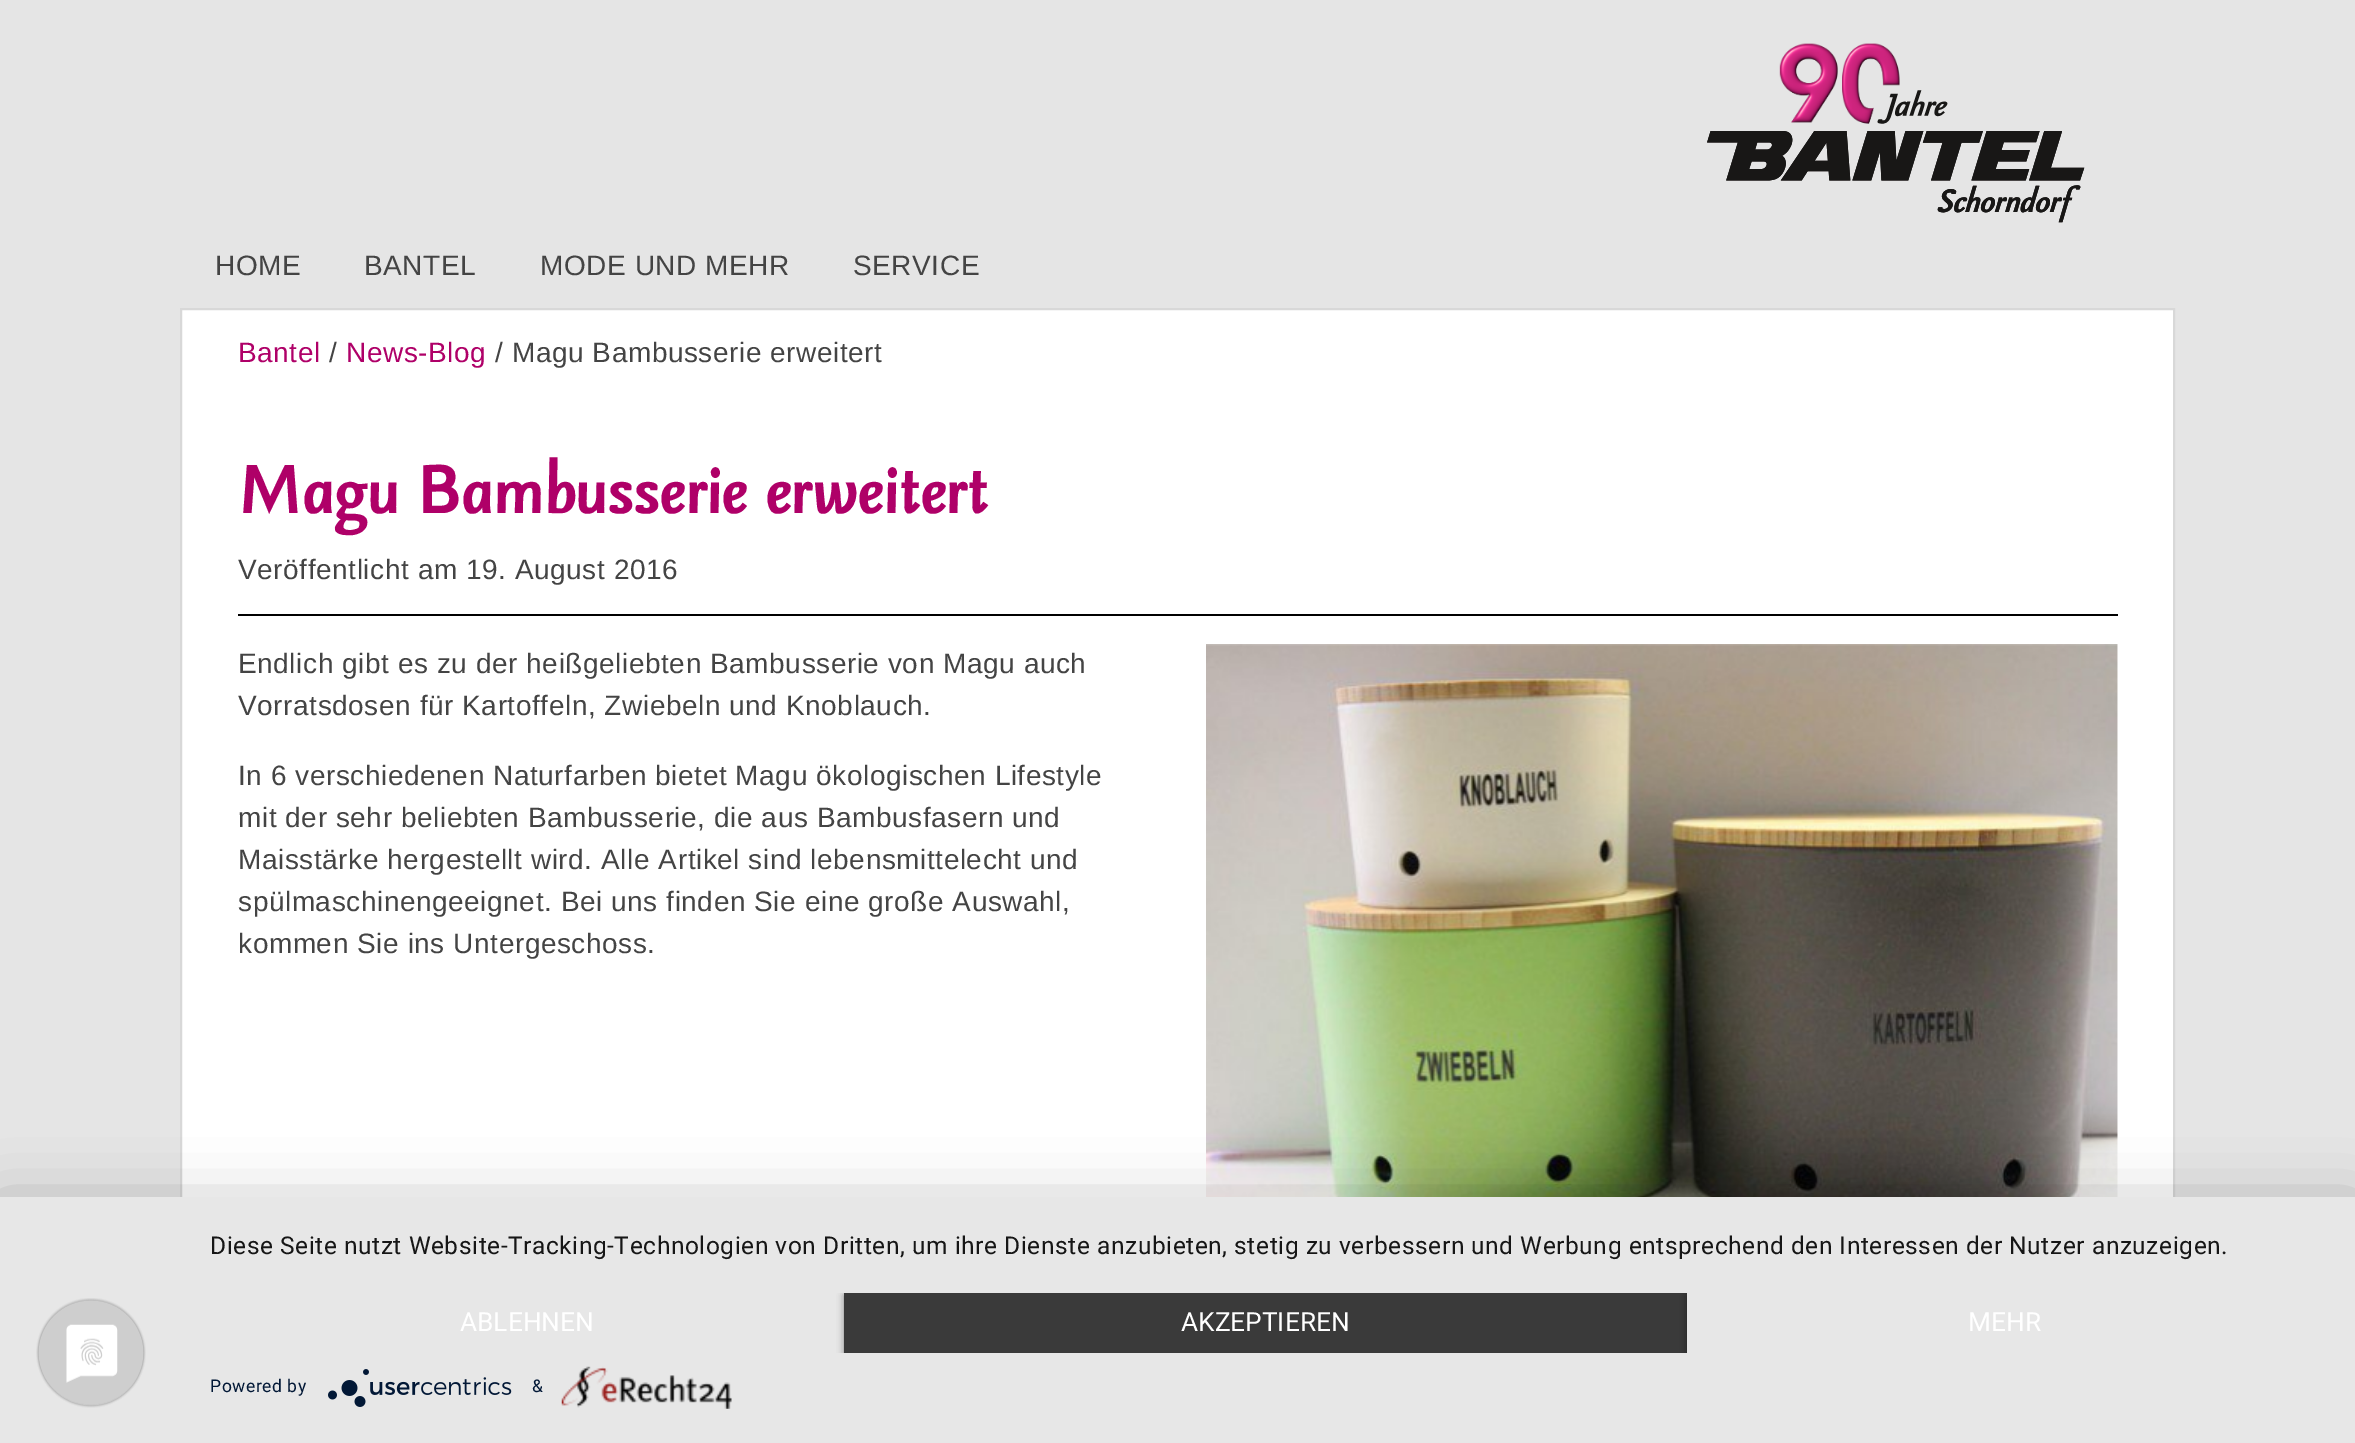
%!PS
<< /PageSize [2355 1443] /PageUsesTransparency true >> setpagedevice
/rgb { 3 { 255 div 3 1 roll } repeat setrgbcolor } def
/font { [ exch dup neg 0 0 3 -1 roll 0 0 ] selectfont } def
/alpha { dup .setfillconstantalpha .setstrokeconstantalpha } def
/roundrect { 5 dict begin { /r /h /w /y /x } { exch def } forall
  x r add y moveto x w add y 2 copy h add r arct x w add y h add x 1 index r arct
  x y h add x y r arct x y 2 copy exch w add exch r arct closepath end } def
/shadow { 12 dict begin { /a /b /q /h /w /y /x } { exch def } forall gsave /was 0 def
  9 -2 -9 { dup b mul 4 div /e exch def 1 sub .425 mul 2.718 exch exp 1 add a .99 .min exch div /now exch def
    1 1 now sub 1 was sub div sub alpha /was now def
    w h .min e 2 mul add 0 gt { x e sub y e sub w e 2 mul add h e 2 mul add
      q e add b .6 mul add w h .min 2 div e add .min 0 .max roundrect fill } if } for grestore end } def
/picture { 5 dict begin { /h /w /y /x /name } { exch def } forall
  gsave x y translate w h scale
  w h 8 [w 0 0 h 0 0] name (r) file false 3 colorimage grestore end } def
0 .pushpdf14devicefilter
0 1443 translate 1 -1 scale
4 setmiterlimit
229 229 229 rgb
0 0 2355 1443 rectfill
(img/1.rgb) 1707 43 378 180 picture
255 255 255 rgb
182 310 1991 887 rectfill
216 216 216 rgb
2 setlinewidth
181 309 1993 1006 rectstroke
0 0 0 rgb
238 614 1880 2 rectfill
(img/2.rgb) 1206 644 912 553 picture
0 1208 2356 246 0 31.5 0.3 shadow
231 231 231 rgb
0 1197 2355 246 rectfill
(img/3.rgb) 36 1298 110 110 picture
gsave
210 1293 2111 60 rectclip
0 0 0 rgb
844 1295 843 60 0 3.5 0.4 shadow
grestore
58 58 58 rgb
844 1293 843 60 rectfill
gsave
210 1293 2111 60 rectclip
0 0 0 rgb
1687 1295 634 60 0 3.5 0.4 shadow
grestore
231 231 231 rgb
1687 1293 634 60 rectfill
(img/4.rgb) 328 1369 184 38 picture
(img/5.rgb) 561 1366 171 43 picture
/LiberationSans-Regular 28 font
68 68 68 rgb
215 275 moveto 0.56 0 (HOME) ashow
364 275 moveto 0.56 0 (BANTEL) ashow
540 275 moveto 0.56 0 (MODE UND MEHR) ashow
853 275 moveto 0.56 0 (SERVICE) ashow
175 0 104 rgb
238 362 moveto 0.56 0 (Bantel) ashow
68 68 68 rgb
329 362 moveto 0.56 0 (/) ashow
175 0 104 rgb
346 362 moveto 0.56 0 (News-Blog) ashow
68 68 68 rgb
495 362 moveto 0.56 0 (/ Magu Bambusserie erweitert) ashow
/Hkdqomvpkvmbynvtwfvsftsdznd-Bold 84 font
175 0 104 rgb
238 513 moveto 0.56 0 (Magu Bambusserie erweitert) ashow
/LiberationSans-Regular 28 font
68 68 68 rgb
238 579 moveto 0.56 0 (Veröffentlicht am 19. August 2016) ashow
238 673 moveto 0.56 0 (Endlich gibt es zu der heißgeliebten Bambusserie von Magu auch) ashow
238 715 moveto 0.56 0 (Vorratsdosen für Kartoffeln, Zwiebeln und Knoblauch.) ashow
238 785 moveto 0.56 0 (In 6 verschiedenen Naturfarben bietet Magu ökologischen Lifestyle) ashow
238 827 moveto 0.56 0 (mit der sehr beliebten Bambusserie, die aus Bambusfasern und) ashow
238 869 moveto 0.56 0 (Maisstärke hergestellt wird. Alle Artikel sind lebensmittelecht und) ashow
238 911 moveto 0.56 0 (spülmaschinengeeignet. Bei uns finden Sie eine große Auswahl,) ashow
238 953 moveto 0.56 0 (kommen Sie ins Untergeschoss.) ashow
/Roboto-Regular 24.5 font
22 22 22 rgb
210 1254 moveto 0.56 0 (Diese Seite nutzt Website-Tracking-Technologien von Dritten, um ihre Dienste anzubieten, stetig zu verbessern und Werbung entsprechend den Interessen der Nutzer anzuzeigen.) ashow
/Roboto-Regular 26.25 font
255 255 255 rgb
[
  [(ABLEHNEN) 460 1331]
  [(AKZEPTIEREN) 1181 1331]
  [(MEHR) 1968 1331]
] { aload pop moveto show } forall
/Roboto-Regular 17.5 font
2 24 54 rgb
210 1392 moveto 0.56 0 (Powered by) ashow
532 1392 moveto 0.56 0 (&) ashow
.poppdf14devicefilter showpage
